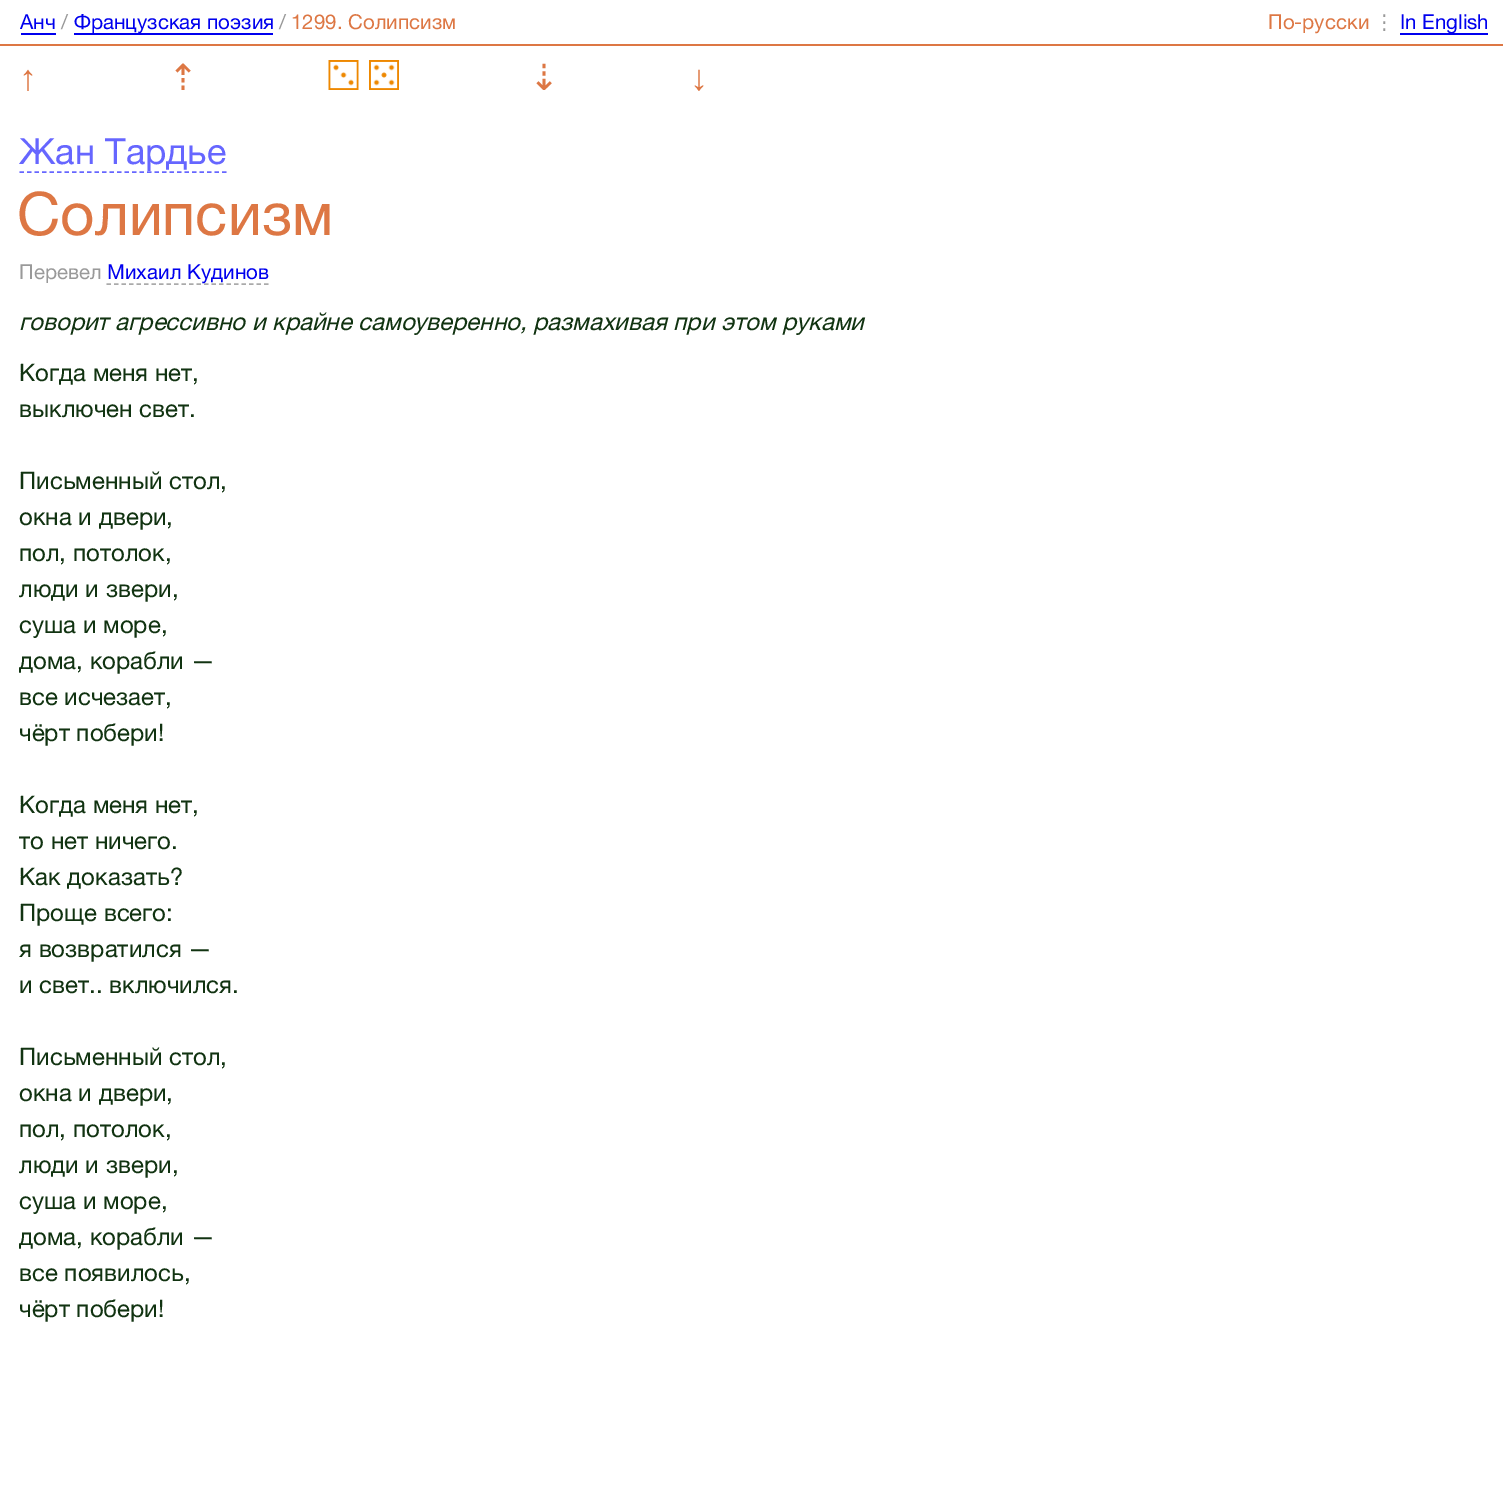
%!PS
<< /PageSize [1503 1503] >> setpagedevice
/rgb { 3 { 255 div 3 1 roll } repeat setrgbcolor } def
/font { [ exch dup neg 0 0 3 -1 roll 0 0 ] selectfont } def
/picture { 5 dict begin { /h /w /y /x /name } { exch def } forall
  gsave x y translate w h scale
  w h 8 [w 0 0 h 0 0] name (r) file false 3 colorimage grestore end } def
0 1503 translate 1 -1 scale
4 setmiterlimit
255 255 255 rgb
0 0 1503 1503 rectfill
[
  [0 44 1503 2 221 119 68]
  [21 33 35 2 0 0 238]
  [74 33 199 2 0 0 238]
  [1400 33 88 2 0 0 238]
] { aload pop rgb rectfill } forall
(img/1.rgb) 328 60 31 30 picture
(img/2.rgb) 369 60 30 30 picture
102 102 255 rgb
1.5 setlinewidth
[4.5 3] 0 setdash
19.5 172 moveto 226.5 172 lineto stroke
170 170 170 rgb
106.5 284 moveto 268.5 284 lineto stroke
/HelveticaNeue-Regular 20.5 font
0 0 238 rgb
20 29 moveto (Анч) show
153 153 153 rgb
61 29 moveto (/) show
0 0 238 rgb
74 29 moveto (Французская поэзия) show
153 153 153 rgb
279 29 moveto (/) show
221 119 68 rgb
291 29 moveto (1299. Солипсизм) show
1268 29 moveto (По-русски) show
/DejaVuSans-Regular 20.5 font
153 153 153 rgb
1374 29 moveto (⋮) show
/HelveticaNeue-Regular 20.5 font
0 0 238 rgb
1400 29 moveto (In English) show
/LiberationSans-Regular 36 font
221 119 68 rgb
19 90 moveto (↑) show
/DejaVuSans-Regular 36 font
168 90 moveto (⇡) show
529 90 moveto (⇣) show
/LiberationSans-Regular 36 font
690 90 moveto (↓) show
/HelveticaNeue-Regular 36 font
102 102 255 rgb
19 164 moveto (Жан Тардье) show
/HelveticaNeue-Regular 60 font
221 119 68 rgb
17 235 moveto (Солипсизм) show
/HelveticaNeue-Regular 20.5 font
153 153 153 rgb
19 279 moveto (Перевел) show
0 0 238 rgb
107 279 moveto (Михаил Кудинов) show
/HelveticaNeue-Italic 24 font
17 51 17 rgb
19 330 moveto (говорит агрессивно и крайне самоуверенно, размахивая при этом руками) show
/HelveticaNeue-Regular 24 font
[
  [(Когда меня нет,) 19 381]
  [(выключен свет.) 19 417]
  [(Письменный стол,) 19 489]
  [(окна и двери,) 19 525]
  [(пол, потолок,) 19 561]
  [(люди и звери,) 19 597]
  [(суша и море,) 19 633]
  [(дома, корабли —) 19 669]
  [(все исчезает,) 19 705]
  [(чёрт побери!) 19 741]
  [(Когда меня нет,) 19 813]
  [(то нет ничего.) 19 849]
  [(Как доказать?) 19 885]
  [(Проще всего:) 19 921]
  [(я возвратился —) 19 957]
  [(и свет.. включился.) 19 993]
  [(Письменный стол,) 19 1065]
  [(окна и двери,) 19 1101]
  [(пол, потолок,) 19 1137]
  [(люди и звери,) 19 1173]
  [(суша и море,) 19 1209]
  [(дома, корабли —) 19 1245]
  [(все появилось,) 19 1281]
  [(чёрт побери!) 19 1317]
] { aload pop moveto show } forall
showpage
